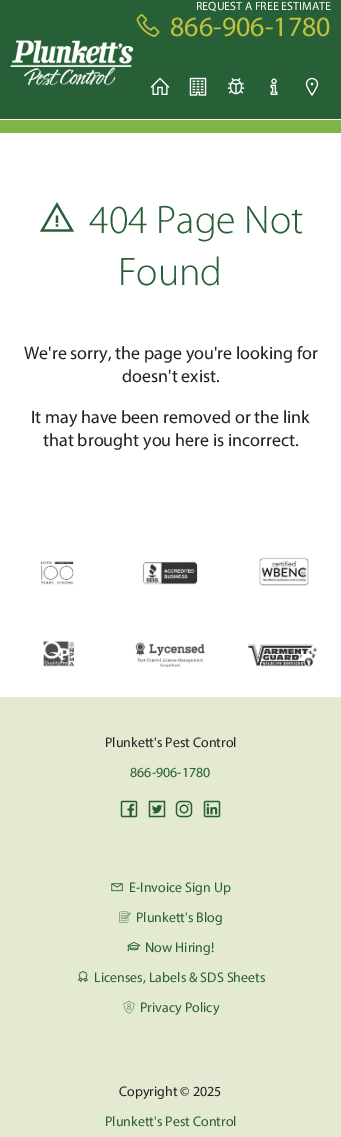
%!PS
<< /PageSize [341 1137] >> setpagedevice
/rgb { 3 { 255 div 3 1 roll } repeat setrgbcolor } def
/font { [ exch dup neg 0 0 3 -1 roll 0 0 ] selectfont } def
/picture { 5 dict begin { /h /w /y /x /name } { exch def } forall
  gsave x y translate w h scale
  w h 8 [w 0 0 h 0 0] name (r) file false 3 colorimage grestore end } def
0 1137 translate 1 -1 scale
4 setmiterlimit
255 255 255 rgb
0 0 341 1137 rectfill
39 95 55 rgb
0 0 341 119 rectfill
(img/1.rgb) 136 14 24 23 picture
(img/2.rgb) 150 77 20 18 picture
(img/3.rgb) 189 77 18 19 picture
(img/4.rgb) 227 78 18 17 picture
(img/5.rgb) 270 78 8 17 picture
(img/6.rgb) 305 77 14 19 picture
(img/7.rgb) 10 40 124 46 picture
127 180 73 rgb
0 120 341 13 rectfill
(img/8.rgb) 40 202 34 30 picture
(img/9.rgb) 40 561 34 24 picture
(img/10.rgb) 142 561 56 24 picture
(img/11.rgb) 259 557 50 29 picture
(img/12.rgb) 43 640 32 27 picture
(img/13.rgb) 135 642 70 26 picture
(img/14.rgb) 248 643 69 24 picture
227 234 209 rgb
0 697 341 440 rectfill
(img/15.rgb) 120 800 18 18 picture
(img/16.rgb) 148 800 18 18 picture
(img/17.rgb) 175 800 18 18 picture
(img/18.rgb) 203 800 18 18 picture
(img/19.rgb) 111 883 12 9 picture
(img/20.rgb) 119 911 12 12 picture
(img/21.rgb) 127 942 14 10 picture
(img/22.rgb) 77 971 12 12 picture
(img/23.rgb) 123 1000 12 14 picture
/Myriad-Regular 12 font
255 255 255 rgb
196 10 moveto (REQUEST A FREE ESTIMATE) show
/Myriad-Regular 28 font
191 192 63 rgb
170 36 moveto (866-906-1780) show
/Myriad-Light 40 font
39 95 55 rgb
89 233 moveto (404 Page Not) show
118 285 moveto (Found) show
/Myriad-Regular 18 font
34 34 34 rgb
[
  [(We're sorry, the page you're looking for) 24 359]
  [(doesn't exist.) 122 382]
  [(It may have been removed or the link) 31 423]
  [(that brought you here is incorrect.) 43 446]
] { aload pop moveto show } forall
/Myriad-Regular 14 font
105 747 moveto (Plunkett's Pest Control) show
39 95 55 rgb
[
  [(866-906-1780) 130 777]
  [(E-Invoice Sign Up) 129 892]
  [(Plunkett's Blog) 136 922]
  [(Now Hiring!) 145 952]
  [(Licenses, Labels & SDS Sheets) 94 982]
  [(Privacy Policy) 140 1012]
] { aload pop moveto show } forall
34 34 34 rgb
119 1096 moveto (Copyright © 2025) show
39 95 55 rgb
105 1126 moveto (Plunkett's Pest Control) show
showpage
